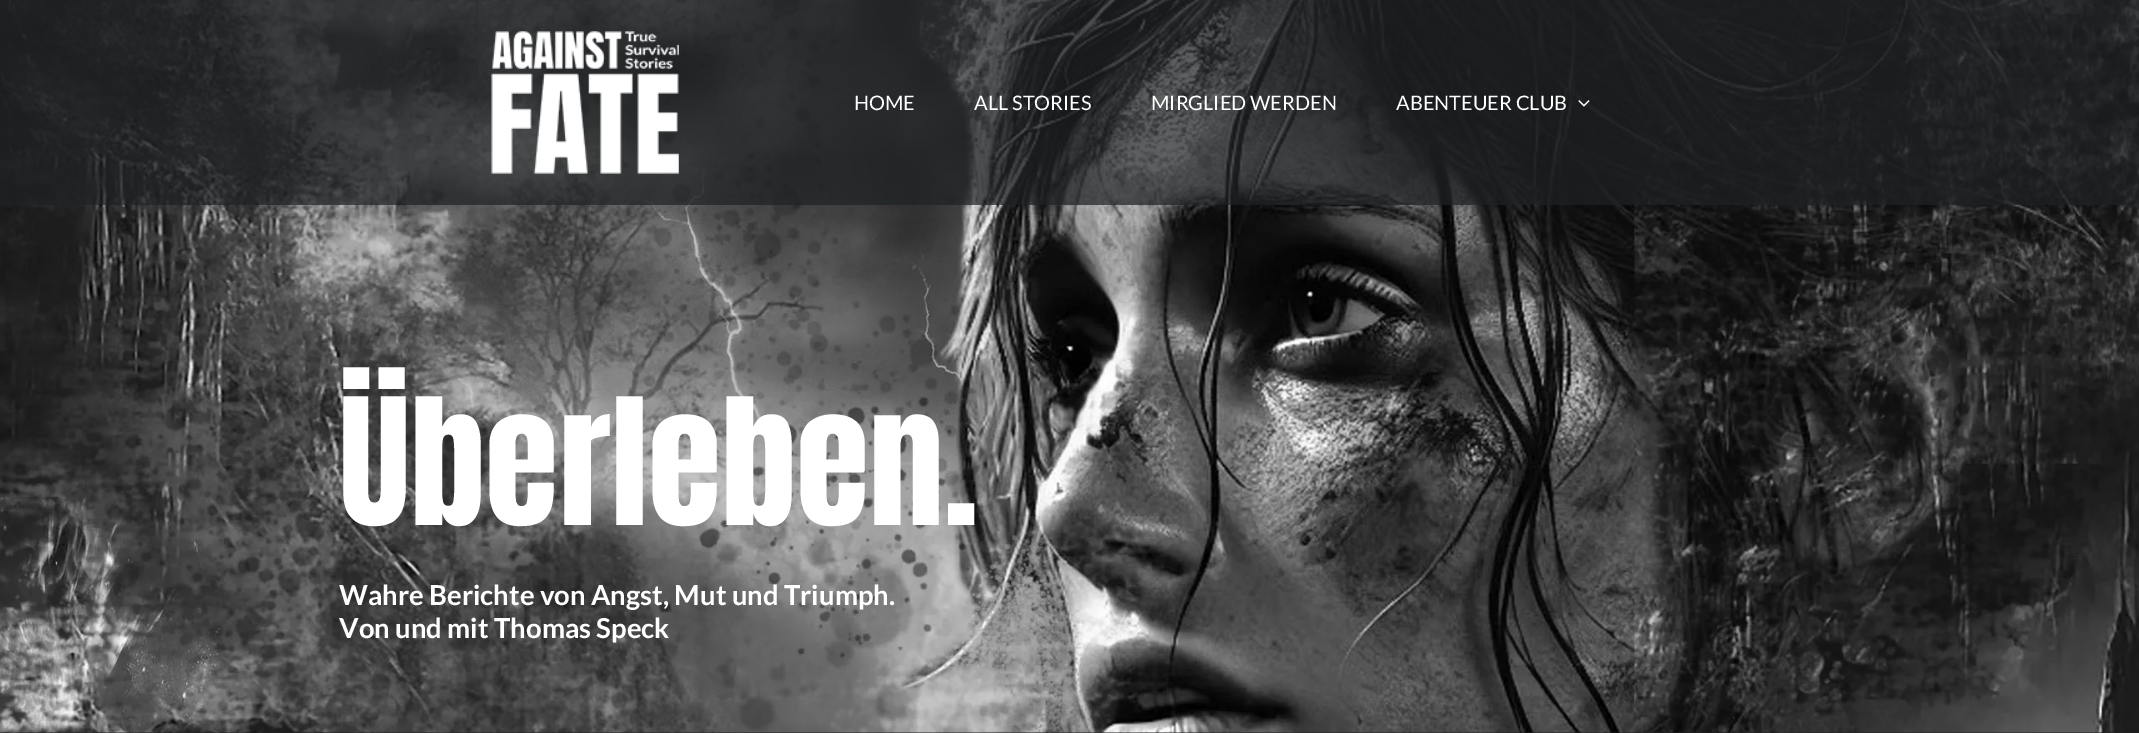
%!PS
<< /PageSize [2139 733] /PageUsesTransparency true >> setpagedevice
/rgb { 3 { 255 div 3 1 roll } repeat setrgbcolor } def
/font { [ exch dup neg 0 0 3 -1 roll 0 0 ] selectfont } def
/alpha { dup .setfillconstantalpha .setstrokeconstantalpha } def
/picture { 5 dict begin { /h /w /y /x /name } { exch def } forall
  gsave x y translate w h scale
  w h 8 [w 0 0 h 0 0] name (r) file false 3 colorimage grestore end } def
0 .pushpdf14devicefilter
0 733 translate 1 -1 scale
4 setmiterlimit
30 33 35 rgb
0 0 2139 733 rectfill
(img/3.rgb) 0 0 2139 733 picture
0.71 alpha
0 0 2139 205 rectfill
1 alpha
(img/1.rgb) 491 31 188 143 picture
(img/2.rgb) 1578 100 12 7 picture
/Lato-Regular 20 font
255 255 255 rgb
[
  [(HOME) 854 110]
  [(ALL STORIES) 974 110]
  [(MIRGLIED WERDEN) 1151 110]
  [(ABENTEUER CLUB) 1396 110]
] { aload pop moveto show } forall
/Anton-Regular 150 font
339 525 moveto (Überleben.) show
/Lato-Bold 27.5 font
339 605 moveto (Wahre Berichte von Angst, Mut und Triumph.) show
339 638 moveto (Von und mit Thomas Speck) show
.poppdf14devicefilter showpage
